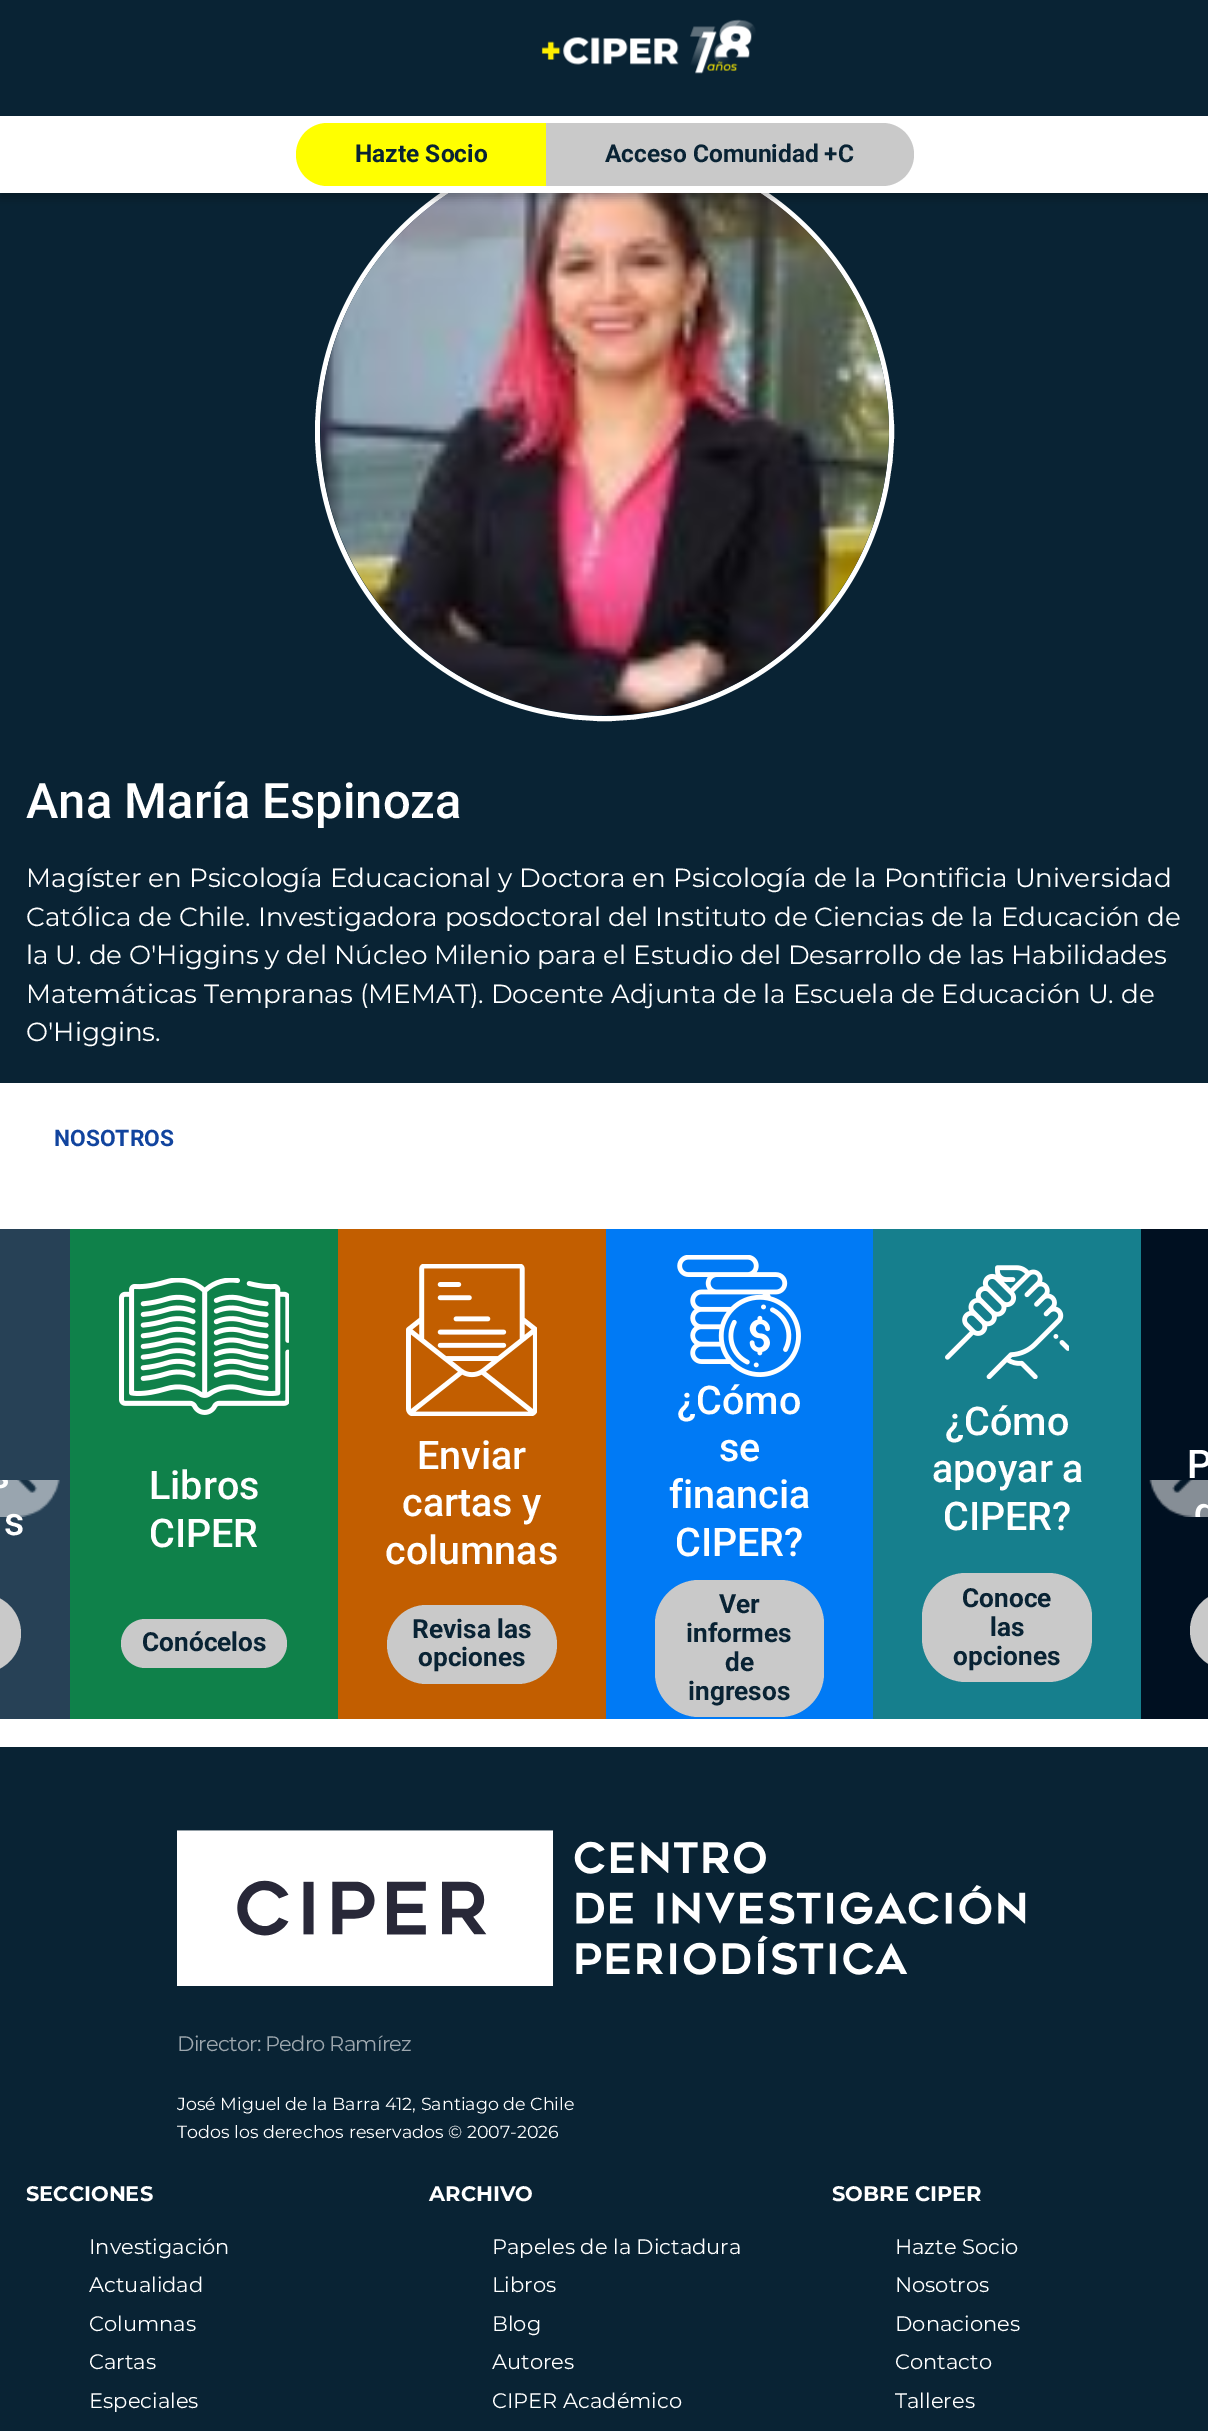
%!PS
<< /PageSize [1208 2431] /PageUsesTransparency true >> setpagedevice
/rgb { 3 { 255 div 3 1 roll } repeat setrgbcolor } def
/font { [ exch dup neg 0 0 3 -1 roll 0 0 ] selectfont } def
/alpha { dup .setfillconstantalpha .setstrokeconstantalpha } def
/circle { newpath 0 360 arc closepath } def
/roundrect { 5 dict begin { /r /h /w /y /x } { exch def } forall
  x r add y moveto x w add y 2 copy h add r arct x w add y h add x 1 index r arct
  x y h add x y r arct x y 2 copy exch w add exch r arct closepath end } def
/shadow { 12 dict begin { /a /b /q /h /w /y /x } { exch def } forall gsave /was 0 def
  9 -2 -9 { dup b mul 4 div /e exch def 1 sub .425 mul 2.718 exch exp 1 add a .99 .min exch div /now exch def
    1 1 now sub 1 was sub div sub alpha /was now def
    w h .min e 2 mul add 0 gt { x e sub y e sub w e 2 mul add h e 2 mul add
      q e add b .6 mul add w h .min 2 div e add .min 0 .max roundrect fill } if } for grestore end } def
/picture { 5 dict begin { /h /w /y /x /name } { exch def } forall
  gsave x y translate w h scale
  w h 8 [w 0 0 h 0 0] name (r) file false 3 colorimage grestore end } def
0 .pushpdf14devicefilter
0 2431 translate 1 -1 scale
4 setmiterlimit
255 255 255 rgb
0 0 1208 2431 rectfill
9 35 52 rgb
0 193 1208 890 rectfill
255 255 255 rgb
5 setlinewidth
604.5 431.5 287 circle stroke
(img/2.rgb) 320 193 569 523 picture
0 0 0 rgb
0 5 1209 193 0 5 0.29 shadow
255 255 255 rgb
0 116 1208 77 rectfill
9 35 52 rgb
0 0 1208 116 rectfill
(img/1.rgb) 541 19 215 55 picture
255 255 0 rgb
327.5 123 moveto 546 123 lineto 546 186 lineto 327.5 186 lineto 310 186 296 172 296 154.5 curveto 296 137 310 123 327.5 123 curveto closepath fill
201 201 201 rgb
546 123 moveto 882.5 123 lineto 900 123 914 137 914 154.5 curveto 914 172 900 186 882.5 186 curveto 546 186 lineto closepath fill
194 94 0 rgb
338 1229 268 490 rectfill
(img/3.rgb) 406 1264 131 152 picture
201 201 201 rgb
387 1605 170 79 39.5 roundrect fill
0 122 245 rgb
606 1229 267 490 rectfill
(img/4.rgb) 677 1255 124 122 picture
201 201 201 rgb
655 1580 169 137 44 roundrect fill
22 127 141 rgb
873 1229 268 490 rectfill
(img/5.rgb) 945 1265 124 114 picture
201 201 201 rgb
922 1573 170 109 44 roundrect fill
0 16 33 rgb
1141 1229 67 490 rectfill
201 201 201 rgb
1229.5 1591 moveto 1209 1591 lineto 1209 1670 lineto 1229.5 1670 lineto 1207.5 1670 1190 1652.5 1190 1630.5 curveto 1190 1608.5 1207.5 1591 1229.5 1591 curveto closepath fill
39 65 86 rgb
0 1229 70 490 rectfill
201 201 201 rgb
0 1594 moveto -18.5 1594 lineto 3.5 1594 21 1611.5 21 1633.5 curveto 21 1655.5 3.5 1673 -18.5 1673 curveto 0 1673 lineto closepath fill
15 129 74 rgb
70 1229 268 490 rectfill
(img/6.rgb) 119 1278 170 137 picture
201 201 201 rgb
121 1619 166 49 24.5 roundrect fill
(img/8.rgb) 1149 1480 59 37 picture
9 35 52 rgb
0 1747 1208 684 rectfill
(img/9.rgb) 177 1830 849 156 picture
/Roboto-Bold 24.5 font
355 162 moveto (Hazte Socio) show
605 162 moveto (Acceso Comunidad +C) show
/Roboto-Medium 49 font
255 255 255 rgb
26 818 moveto (Ana María Espinoza) show
/Montserrat-Regular 26.25 font
[
  [(Magíster en Psicología Educacional y Doctora en Psicología de la Pontificia Universidad) 26 887]
  [(Católica de Chile. Investigadora posdoctoral del Instituto de Ciencias de la Educación de) 26 926]
  [(la U. de O'Higgins y del Núcleo Milenio para el Estudio del Desarrollo de las Habilidades) 26 964]
  [(Matemáticas Tempranas \(MEMAT\). Docente Adjunta de la Escuela de Educación U. de) 26 1003]
  [(O'Higgins.) 26 1041]
] { aload pop moveto show } forall
/Roboto-Bold 22.75 font
17 68 158 rgb
54 1146 moveto (NOSOTROS) show
/Roboto-Medium 39.5 font
255 255 255 rgb
[
  [(Enviar) 417 1469]
  [(cartas y) 402 1516]
  [(columnas) 385 1564]
] { aload pop moveto show } forall
/Roboto-Bold 26.25 font
9 35 52 rgb
412 1638 moveto (Revisa las) show
418 1666 moveto (opciones) show
/Roboto-Medium 39.5 font
255 255 255 rgb
[
  [(¿Cómo) 677 1414]
  [(se) 719 1461]
  [(financia) 669 1508]
  [(CIPER?) 675 1556]
] { aload pop moveto show } forall
/Roboto-Bold 26.25 font
9 35 52 rgb
[
  [(Ver) 719 1613]
  [(informes) 686 1642]
  [(de) 725 1671]
  [(ingresos) 688 1700]
] { aload pop moveto show } forall
/Roboto-Medium 39.5 font
255 255 255 rgb
[
  [(¿Cómo) 945 1435]
  [(apoyar a) 932 1482]
  [(CIPER?) 943 1530]
] { aload pop moveto show } forall
/Roboto-Bold 26.25 font
9 35 52 rgb
[
  [(Conoce) 962 1607]
  [(las) 990 1636]
  [(opciones) 953 1665]
] { aload pop moveto show } forall
/Roboto-Medium 39.5 font
255 255 255 rgb
[
  [(P) 1187 1478]
  [(s) 4 1535]
  [(Libros) 149 1499]
  [(CIPER) 149 1547]
] { aload pop moveto show } forall
/Roboto-Bold 26.25 font
9 35 52 rgb
142 1651 moveto (Conócelos) show
(img/7.rgb) 0 1480 60 37 picture
/Montserrat-Regular 21 font
157 167 174 rgb
177 2051 moveto -0.8 0 (Director: Pedro Ramírez) ashow
/Montserrat-Regular 17.5 font
255 255 255 rgb
177 2110 moveto (José Miguel de la Barra 412, Santiago de Chile) show
177 2138 moveto (Todos los derechos reservados © 2007-2026) show
/Montserrat-Bold 21 font
26 2201 moveto (SECCIONES) show
/Montserrat-Regular 21 font
[
  [(Investigación) 89 2254]
  [(Actualidad) 89 2292]
  [(Columnas) 89 2331]
  [(Cartas) 89 2369]
  [(Especiales) 89 2408]
] { aload pop moveto show } forall
/Montserrat-Bold 21 font
429 2201 moveto (ARCHIVO) show
/Montserrat-Regular 21 font
[
  [(Papeles de la Dictadura) 492 2254]
  [(Libros) 492 2292]
  [(Blog) 492 2331]
  [(Autores) 492 2369]
  [(CIPER Académico) 492 2408]
] { aload pop moveto show } forall
/Montserrat-Bold 21 font
832 2201 moveto (SOBRE CIPER) show
/Montserrat-Regular 21 font
[
  [(Hazte Socio) 895 2254]
  [(Nosotros) 895 2292]
  [(Donaciones) 895 2331]
  [(Contacto) 895 2369]
  [(Talleres) 895 2408]
] { aload pop moveto show } forall
.poppdf14devicefilter showpage
